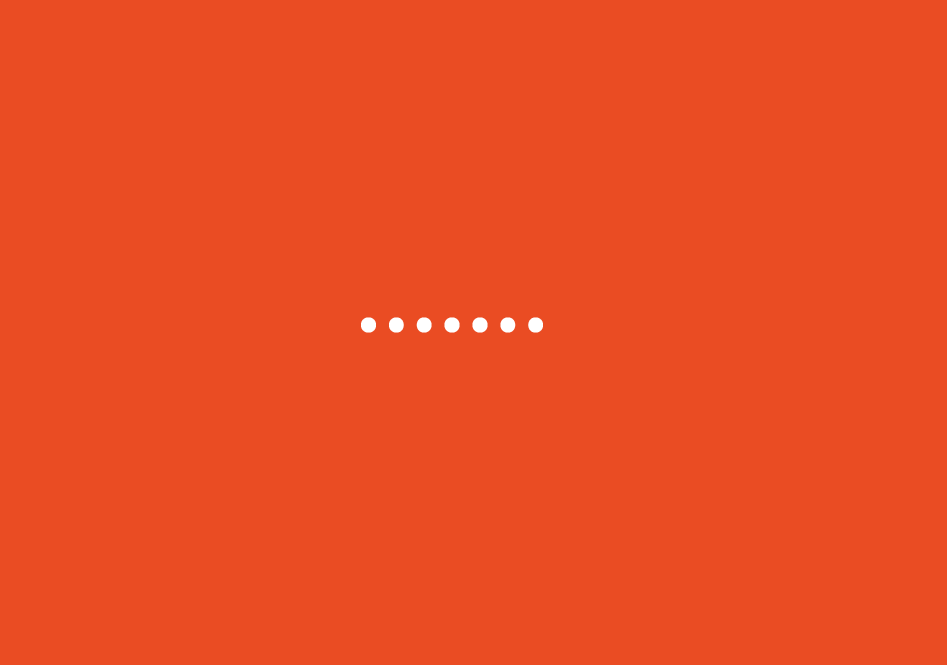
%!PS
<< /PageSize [947 665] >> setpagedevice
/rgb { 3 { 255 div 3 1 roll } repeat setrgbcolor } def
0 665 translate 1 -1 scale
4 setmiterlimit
234 76 35 rgb
0 0 947 665 rectfill
255 255 255 rgb
368.5 332.5 moveto 358.5 332.5 358.5 317.5 368.5 317.5 curveto 378.5 317.5 378.5 332.5 368.5 332.5 curveto closepath fill
424 332.5 moveto 414.5 332.5 414.5 317.5 424 317.5 curveto 434 317.5 434 332.5 424 332.5 curveto closepath 396.5 332.5 moveto 386.5 332.5 386.5 317.5 396.5 317.5 curveto 406 317.5 406 332.5 396.5 332.5 curveto closepath fill
480 332.5 moveto 470 332.5 470 317.5 480 317.5 curveto 490 317.5 490 332.5 480 332.5 curveto closepath 452 332.5 moveto 442 332.5 442 317.5 452 317.5 curveto 462 317.5 462 332.5 452 332.5 curveto closepath fill
535.5 332.5 moveto 526 332.5 526 317.5 535.5 317.5 curveto 545.5 317.5 545.5 332.5 535.5 332.5 curveto closepath 508 332.5 moveto 498 332.5 498 317.5 508 317.5 curveto 517.5 317.5 517.5 332.5 508 332.5 curveto closepath fill
showpage
